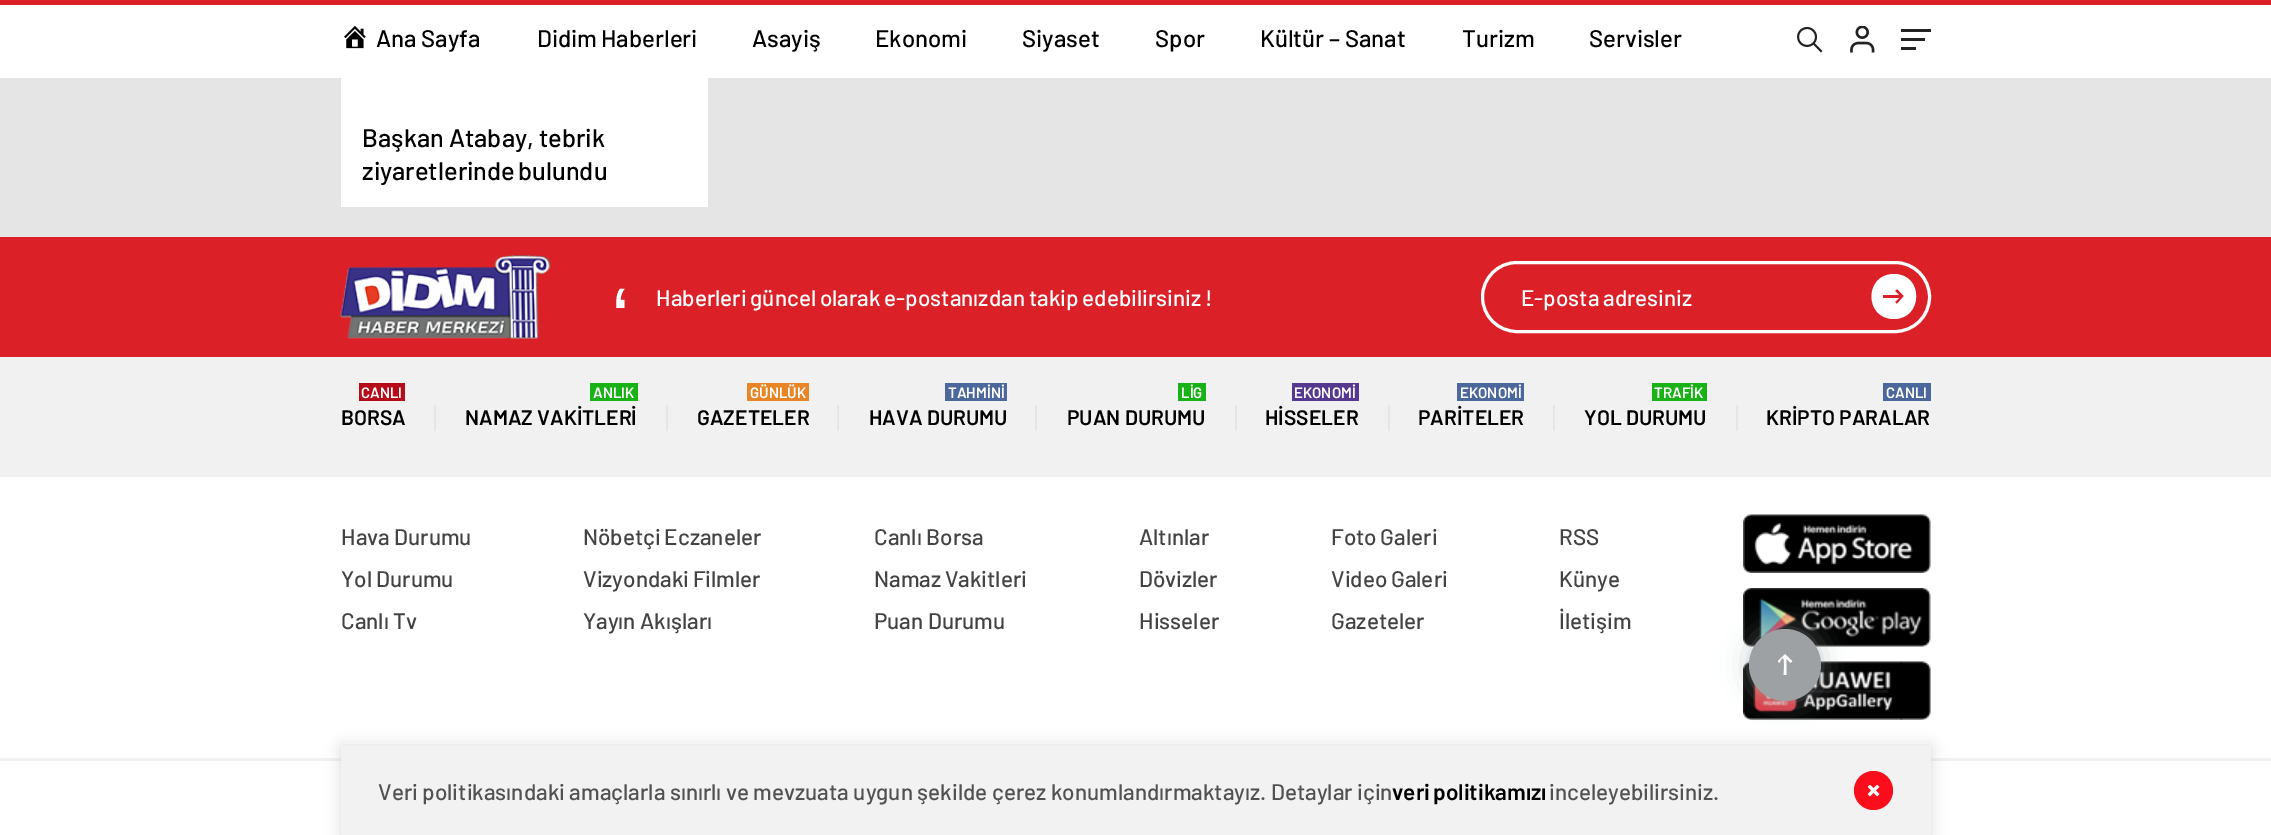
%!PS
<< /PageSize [2271 835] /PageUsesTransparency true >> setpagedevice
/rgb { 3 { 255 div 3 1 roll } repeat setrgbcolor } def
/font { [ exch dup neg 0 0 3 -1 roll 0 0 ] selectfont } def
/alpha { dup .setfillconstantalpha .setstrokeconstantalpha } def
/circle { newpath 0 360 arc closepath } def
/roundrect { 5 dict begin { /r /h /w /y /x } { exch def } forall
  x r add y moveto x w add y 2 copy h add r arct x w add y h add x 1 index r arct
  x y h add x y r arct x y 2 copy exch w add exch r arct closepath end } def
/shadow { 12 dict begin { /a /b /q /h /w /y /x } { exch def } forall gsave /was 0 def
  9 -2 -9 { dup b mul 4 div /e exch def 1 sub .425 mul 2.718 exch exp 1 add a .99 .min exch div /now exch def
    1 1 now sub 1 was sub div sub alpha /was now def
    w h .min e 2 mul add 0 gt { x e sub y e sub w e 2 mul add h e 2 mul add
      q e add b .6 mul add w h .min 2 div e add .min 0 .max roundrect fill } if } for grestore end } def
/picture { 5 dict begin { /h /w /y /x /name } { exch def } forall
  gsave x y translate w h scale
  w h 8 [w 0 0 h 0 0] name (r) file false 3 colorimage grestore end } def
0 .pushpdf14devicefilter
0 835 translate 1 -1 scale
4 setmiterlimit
229 229 229 rgb
0 0 2271 835 rectfill
255 255 255 rgb
0 5 2271 73 rectfill
219 32 39 rgb
0 0 2271 5 rectfill
(img/1.rgb) 344 25 22 24 picture
(img/2.rgb) 1797 26 26 27 picture
(img/3.rgb) 1850 26 25 27 picture
[
  [1901 29 30 3 34 34 34]
  [1901 38 24 3 34 34 34]
  [1901 47 15 3 34 34 34]
  [341 78 367 129 255 255 255]
  [0 477 2271 358 255 255 255]
  [0 237 2271 120 219 32 39]
] { aload pop rgb rectfill } forall
(img/4.rgb) 340 255 211 84 picture
255 255 255 rgb
3 setlinewidth
1482.5 262.5 447 69 34.5 roundrect stroke
1894 319 moveto 1864 319 1864 274 1894 274 curveto 1924 274 1923 319 1894 319 curveto closepath 1883 295 moveto 1883 298 lineto 1899 298 lineto 1895 302 lineto 1897 304 lineto 1904 296 lineto 1897 289 lineto 1895 291 lineto 1899 295 lineto closepath fill
[
  [0 357 2271 120 241 241 241]
  [359 383 46 18 183 11 25]
  [434 405 2 26 230 230 230]
  [590 383 48 18 25 178 22]
  [666 405 2 26 230 230 230]
  [747 383 62 18 232 134 39]
  [837 405 2 26 230 230 230]
  [945 383 62 18 75 103 155]
  [1035 405 2 26 230 230 230]
  [1178 383 28 18 25 178 22]
  [1235 405 2 26 230 230 230]
  [1292 383 67 18 86 56 144]
  [1388 405 2 26 230 230 230]
  [1457 383 67 18 75 103 155]
  [1553 405 2 26 230 230 230]
  [1652 383 55 18 25 178 22]
  [1736 405 2 26 230 230 230]
  [1883 383 48 18 75 103 155]
] { aload pop rgb rectfill } forall
(img/5.rgb) 1743 514 188 59 picture
(img/6.rgb) 1743 588 188 59 picture
(img/7.rgb) 1743 661 188 59 picture
241 241 241 rgb
0 758 2271 3 rectfill
157 161 164 rgb
1749 629 72 72 36 13.5 0.54 shadow
1785 665 36 circle fill
(img/8.rgb) 1778 654 15 21 picture
34 34 34 rgb
341 746 1590 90 0 7.5 0.16 shadow
242 242 242 rgb
341 746 1590 89 rectfill
251 13 27 rgb
1873.5 790.5 19.5 circle fill
(img/9.rgb) 1868 785 12 12 picture
/Barlow-Medium 24 font
0 0 0 rgb
376 47 moveto (Ana Sayfa) show
537 47 moveto -1 0 32 (Didim Haberleri) widthshow
[
  [(Asayiş) 752 47]
  [(Ekonomi) 875 47]
  [(Siyaset) 1022 47]
  [(Spor) 1155 47]
  [(Kültür – Sanat) 1260 47]
  [(Turizm) 1462 47]
  [(Servisler) 1589 47]
] { aload pop moveto show } forall
/Barlow-Medium 25.5 font
362 147 moveto (Başkan Atabay, tebrik) show
362 180 moveto -2 0 32 (ziyaretlerinde bulundu) widthshow
/LiberationSans-Regular 86 font
255 255 255 rgb
611 348 moveto (‘) show
/Barlow-Medium 22.5 font
656 306 moveto -0.75 0 32 (Haberleri güncel olarak e-postanızdan takip edebilirsiniz !) widthshow
1521 306 moveto -1 0 32 (E-posta adresiniz) widthshow
/Barlow-SemiBold 15 font
361 398 moveto (CANLI) show
/Barlow-SemiBold 21 font
0 0 0 rgb
341 425 moveto (BORSA) show
/Barlow-SemiBold 15 font
255 255 255 rgb
593 398 moveto (ANLIK) show
/Barlow-SemiBold 21 font
0 0 0 rgb
465 425 moveto (NAMAZ VAKİTLERİ) show
/Barlow-SemiBold 15 font
255 255 255 rgb
750 398 moveto (GÜNLÜK) show
/Barlow-SemiBold 21 font
0 0 0 rgb
697 425 moveto (GAZETELER) show
/Barlow-SemiBold 15 font
255 255 255 rgb
948 398 moveto (TAHMİNİ) show
/Barlow-SemiBold 21 font
0 0 0 rgb
869 425 moveto (HAVA DURUMU) show
/Barlow-SemiBold 15 font
255 255 255 rgb
1181 398 moveto (LİG) show
/Barlow-SemiBold 21 font
0 0 0 rgb
1067 425 moveto (PUAN DURUMU) show
/Barlow-SemiBold 15 font
255 255 255 rgb
1294 398 moveto (EKONOMİ) show
/Barlow-SemiBold 21 font
0 0 0 rgb
1265 425 moveto (HİSSELER) show
/Barlow-SemiBold 15 font
255 255 255 rgb
1460 398 moveto (EKONOMİ) show
/Barlow-SemiBold 21 font
0 0 0 rgb
1418 425 moveto (PARİTELER) show
/Barlow-SemiBold 15 font
255 255 255 rgb
1654 398 moveto (TRAFİK) show
/Barlow-SemiBold 21 font
0 0 0 rgb
1584 425 moveto (YOL DURUMU) show
/Barlow-SemiBold 15 font
255 255 255 rgb
1886 398 moveto (CANLI) show
/Barlow-SemiBold 21 font
0 0 0 rgb
1766 425 moveto (KRİPTO PARALAR) show
/Barlow-Medium 22.5 font
68 67 67 rgb
[
  [(Hava Durumu) 341 545]
  [(Yol Durumu) 341 587]
  [(Canlı Tv) 341 629]
] { aload pop moveto show } forall
583 545 moveto -0.75 0 32 (Nöbetçi Eczaneler) widthshow
583 587 moveto -1 0 32 (Vizyondaki Filmler) widthshow
583 629 moveto (Yayın Akışları) show
874 545 moveto (Canlı Borsa) show
874 587 moveto -1 0 32 (Namaz Vakitleri) widthshow
[
  [(Puan Durumu) 874 629]
  [(Altınlar) 1139 545]
  [(Dövizler) 1139 587]
  [(Hisseler) 1139 629]
] { aload pop moveto show } forall
1331 545 moveto -1 0 32 (Foto Galeri) widthshow
1331 587 moveto -1 0 32 (Video Galeri) widthshow
[
  [(Gazeteler) 1331 629]
  [(RSS) 1559 545]
  [(Künye) 1559 587]
  [(İletişim) 1559 629]
] { aload pop moveto show } forall
81 81 81 rgb
378 800 moveto (Veri politikasındaki amaçlarla sınırlı ve mevzuata uygun şekilde çerez konumlandırmaktayız. Detaylar için) show
/Barlow-SemiBold 22.5 font
0 0 0 rgb
1392 800 moveto -1 0 32 (veri politikamızı) widthshow
/Barlow-Medium 22.5 font
81 81 81 rgb
1549 800 moveto (inceleyebilirsiniz.) show
.poppdf14devicefilter showpage
